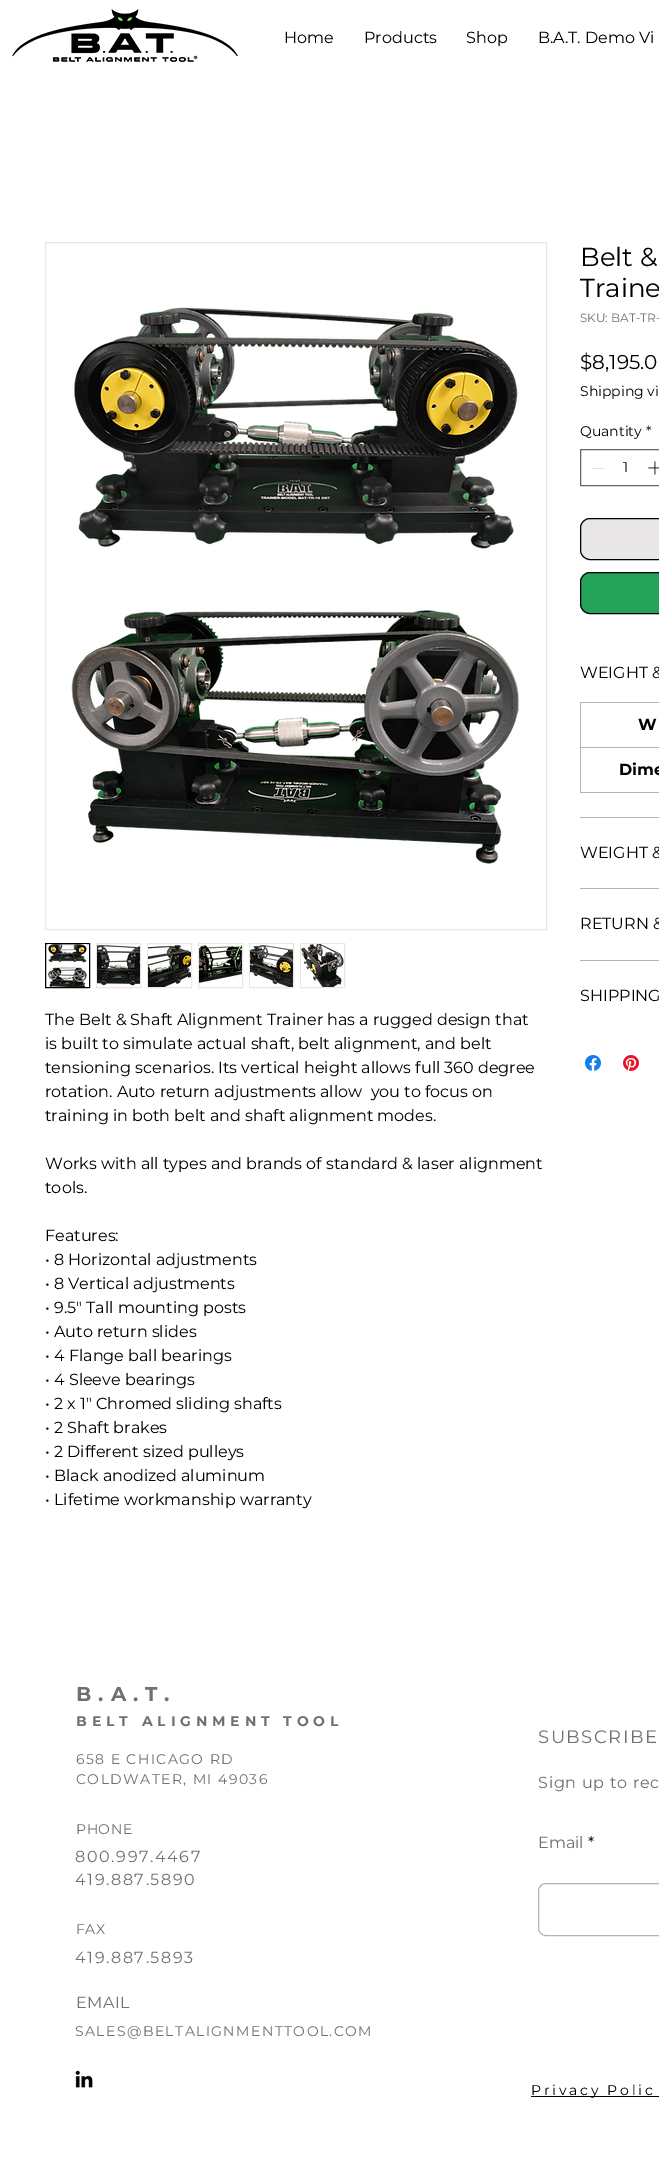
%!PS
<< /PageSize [659 2168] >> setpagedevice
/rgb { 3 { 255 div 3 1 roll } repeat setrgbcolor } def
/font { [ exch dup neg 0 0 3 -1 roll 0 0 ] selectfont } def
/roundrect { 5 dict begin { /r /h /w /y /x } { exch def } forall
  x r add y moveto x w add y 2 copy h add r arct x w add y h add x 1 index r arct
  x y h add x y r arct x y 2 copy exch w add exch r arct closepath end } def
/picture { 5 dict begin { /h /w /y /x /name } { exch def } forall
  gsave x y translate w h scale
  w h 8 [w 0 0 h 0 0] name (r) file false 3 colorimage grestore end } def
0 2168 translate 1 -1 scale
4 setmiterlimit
255 255 255 rgb
0 0 659 2168 rectfill
(img/1.rgb) 12 9 226 53 picture
102 102 102 rgb
580.5 449.5 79 36 rectstroke
227 227 227 rgb
592 468 13 1 rectfill
(img/2.rgb) 648 461 11 14 picture
232 230 230 rgb
580.5 518.5 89 41 9.5 roundrect gsave fill grestore
0 0 0 rgb
stroke
37 162 90 rgb
580.5 572.5 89 41 9.5 roundrect gsave fill grestore
0 0 0 rgb
stroke
[
  [580 817 79 1 180 180 180]
  [580 702 79 1 180 180 180]
  [580 747 79 1 180 180 180]
  [580 792 79 1 180 180 180]
  [580 747 1 46 180 180 180]
  [580 702 1 46 180 180 180]
  [580 888 79 1 180 180 180]
  [580 960 79 1 180 180 180]
] { aload pop rgb rectfill } forall
(img/3.rgb) 585 1055 16 16 picture
(img/4.rgb) 623 1055 16 16 picture
232 230 230 rgb
45.5 242.5 501 687 rectstroke
(img/5.rgb) 71 307 448 557 picture
0 0 0 rgb
45.5 943.5 44 44 rectstroke
(img/6.rgb) 48 944 39 43 picture
232 230 230 rgb
96.5 943.5 44 44 rectstroke
(img/7.rgb) 97 945 43 41 picture
147.5 943.5 44 44 rectstroke
(img/8.rgb) 148 945 43 42 picture
198.5 943.5 44 44 rectstroke
(img/9.rgb) 199 944 43 39 picture
249.5 943.5 44 44 rectstroke
(img/10.rgb) 250 944 43 43 picture
300.5 943.5 44 44 rectstroke
(img/11.rgb) 301 944 43 43 picture
(img/12.rgb) 75 2070 18 18 picture
180 180 180 rgb
538.5 1883.5 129 52 7.5 roundrect stroke
0 0 0 rgb
531 2096 128 1 rectfill
/Montserrat-Regular 16 font
[
  [(Home) 284 43]
  [(Products) 364 43]
  [(Shop) 466 43]
  [(B.A.T. Demo Vi) 538 43]
] { aload pop moveto show } forall
/Montserrat-Regular 26 font
580 266 moveto (Belt &) show
580 297 moveto (Traine) show
/Montserrat-Regular 12 font
112 112 112 rgb
580 322 moveto (SKU: BAT-TR-) show
/Montserrat-Regular 20 font
0 0 0 rgb
580 369 moveto ($8,195.0) show
/Montserrat-Regular 14 font
[
  [(Shipping vi) 580 396]
  [(Quantity) 580 436]
  [(*) 646 436]
  [(1) 623 472]
] { aload pop moveto show } forall
/Montserrat-Regular 16 font
580 678 moveto (WEIGHT &) show
/Montserrat-Bold 16 font
638 730 moveto (W) show
619 775 moveto (Dime) show
/Montserrat-Regular 16 font
[
  [(WEIGHT &) 580 858]
  [(RETURN &) 580 929]
  [(SHIPPING) 580 1001]
  [(The Belt & Shaft Alignment Trainer has a rugged design that) 45 1025]
  [(is built to simulate actual shaft, belt alignment, and belt) 45 1049]
  [(tensioning scenarios. Its vertical height allows full 360 degree) 45 1073]
  [(rotation. Auto return adjustments allow  you to focus on) 45 1097]
  [(training in both belt and shaft alignment modes.) 45 1121]
  [(Works with all types and brands of standard & laser alignment) 45 1169]
  [(tools.) 45 1193]
  [(Features:) 45 1241]
  [(• 8 Horizontal adjustments) 45 1265]
  [(• 8 Vertical adjustments) 45 1289]
  [(• 9.5" Tall mounting posts) 45 1313]
  [(• Auto return slides) 45 1337]
  [(• 4 Flange ball bearings) 45 1361]
  [(• 4 Sleeve bearings) 45 1385]
  [(• 2 x 1" Chromed sliding shafts) 45 1409]
  [(• 2 Shaft brakes) 45 1433]
  [(• 2 Different sized pulleys) 45 1457]
  [(• Black anodized aluminum) 45 1481]
  [(• Lifetime workmanship warranty) 45 1505]
] { aload pop moveto show } forall
/Montserrat-Bold 20 font
112 112 112 rgb
76 1701 moveto 7 0 (B.A.T.) ashow
/Montserrat-Bold 14 font
76 1726 moveto 4.9 0 (BELT ALIGNMENT TOOL) ashow
/Montserrat-Regular 14 font
76 1764 moveto 1.4 0 (658 E CHICAGO RD) ashow
76 1784 moveto 1.4 0 (COLDWATER, MI 49036) ashow
76 1834 moveto 0.5 0 (PHONE) ashow
/Montserrat-Regular 16 font
75 1862 moveto 1.6 0 (800.997.4467) ashow
75 1885 moveto 1.6 0 (419.887.5890) ashow
/Montserrat-Regular 14 font
76 1934 moveto 0.5 0 (FAX) ashow
/Montserrat-Regular 16 font
75 1963 moveto 1.6 0 (419.887.5893) ashow
76 2008 moveto 0.5 0 (EMAIL) ashow
/Montserrat-Regular 14 font
75 2036 moveto 1.4 0 (SALES@BELTALIGNMENTTOOL.COM) ashow
/Montserrat-Regular 18 font
538 1743 moveto 1.5 0 (SUBSCRIBE) ashow
/Montserrat-Regular 16 font
538 1788 moveto 0.75 0 (Sign up to rec) ashow
538 1848 moveto (Email) show
0 0 0 rgb
588 1848 moveto (*) show
/Montserrat-Regular 14 font
531 2095 moveto 2.75 0 (Privacy Polic) ashow
showpage
